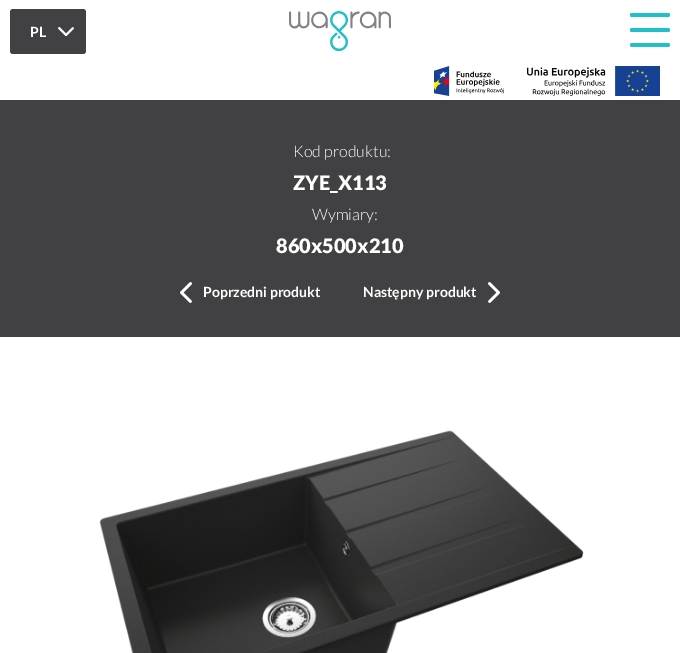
%!PS
<< /PageSize [680 653] >> setpagedevice
/rgb { 3 { 255 div 3 1 roll } repeat setrgbcolor } def
/font { [ exch dup neg 0 0 3 -1 roll 0 0 ] selectfont } def
/roundrect { 5 dict begin { /r /h /w /y /x } { exch def } forall
  x r add y moveto x w add y 2 copy h add r arct x w add y h add x 1 index r arct
  x y h add x y r arct x y 2 copy exch w add exch r arct closepath end } def
/picture { 5 dict begin { /h /w /y /x /name } { exch def } forall
  gsave x y translate w h scale
  w h 8 [w 0 0 h 0 0] name (r) file false 3 colorimage grestore end } def
0 653 translate 1 -1 scale
4 setmiterlimit
255 255 255 rgb
0 0 680 653 rectfill
65 64 66 rgb
10 9 76 45 3 roundrect fill
(img/1.rgb) 58 27 16 9 picture
(img/2.rgb) 289 11 102 40 picture
33 191 199 rgb
630 13 40 4 2 roundrect fill
630 28 40 4 2 roundrect fill
630 43 40 4 2 roundrect fill
(img/3.rgb) 434 66 70 30 picture
(img/4.rgb) 527 66 133 30 picture
65 65 67 rgb
0 100 680 237 rectfill
(img/5.rgb) 180 282 12 21 picture
(img/6.rgb) 488 282 12 21 picture
(img/7.rgb) 99 430 485 223 picture
/Lato-Bold 14 font
255 255 255 rgb
30 37 moveto (PL) show
/Lato-Light 16 font
293 157 moveto (Kod produktu:) show
/Lato-Black 20 font
293 190 moveto (ZYE_X113) show
/Lato-Light 16 font
312 220 moveto (Wymiary:) show
/Lato-Black 20 font
276 253 moveto (860x500x210) show
/Lato-Bold 14 font
203 297 moveto (Poprzedni produkt) show
363 297 moveto (Następny produkt) show
showpage
